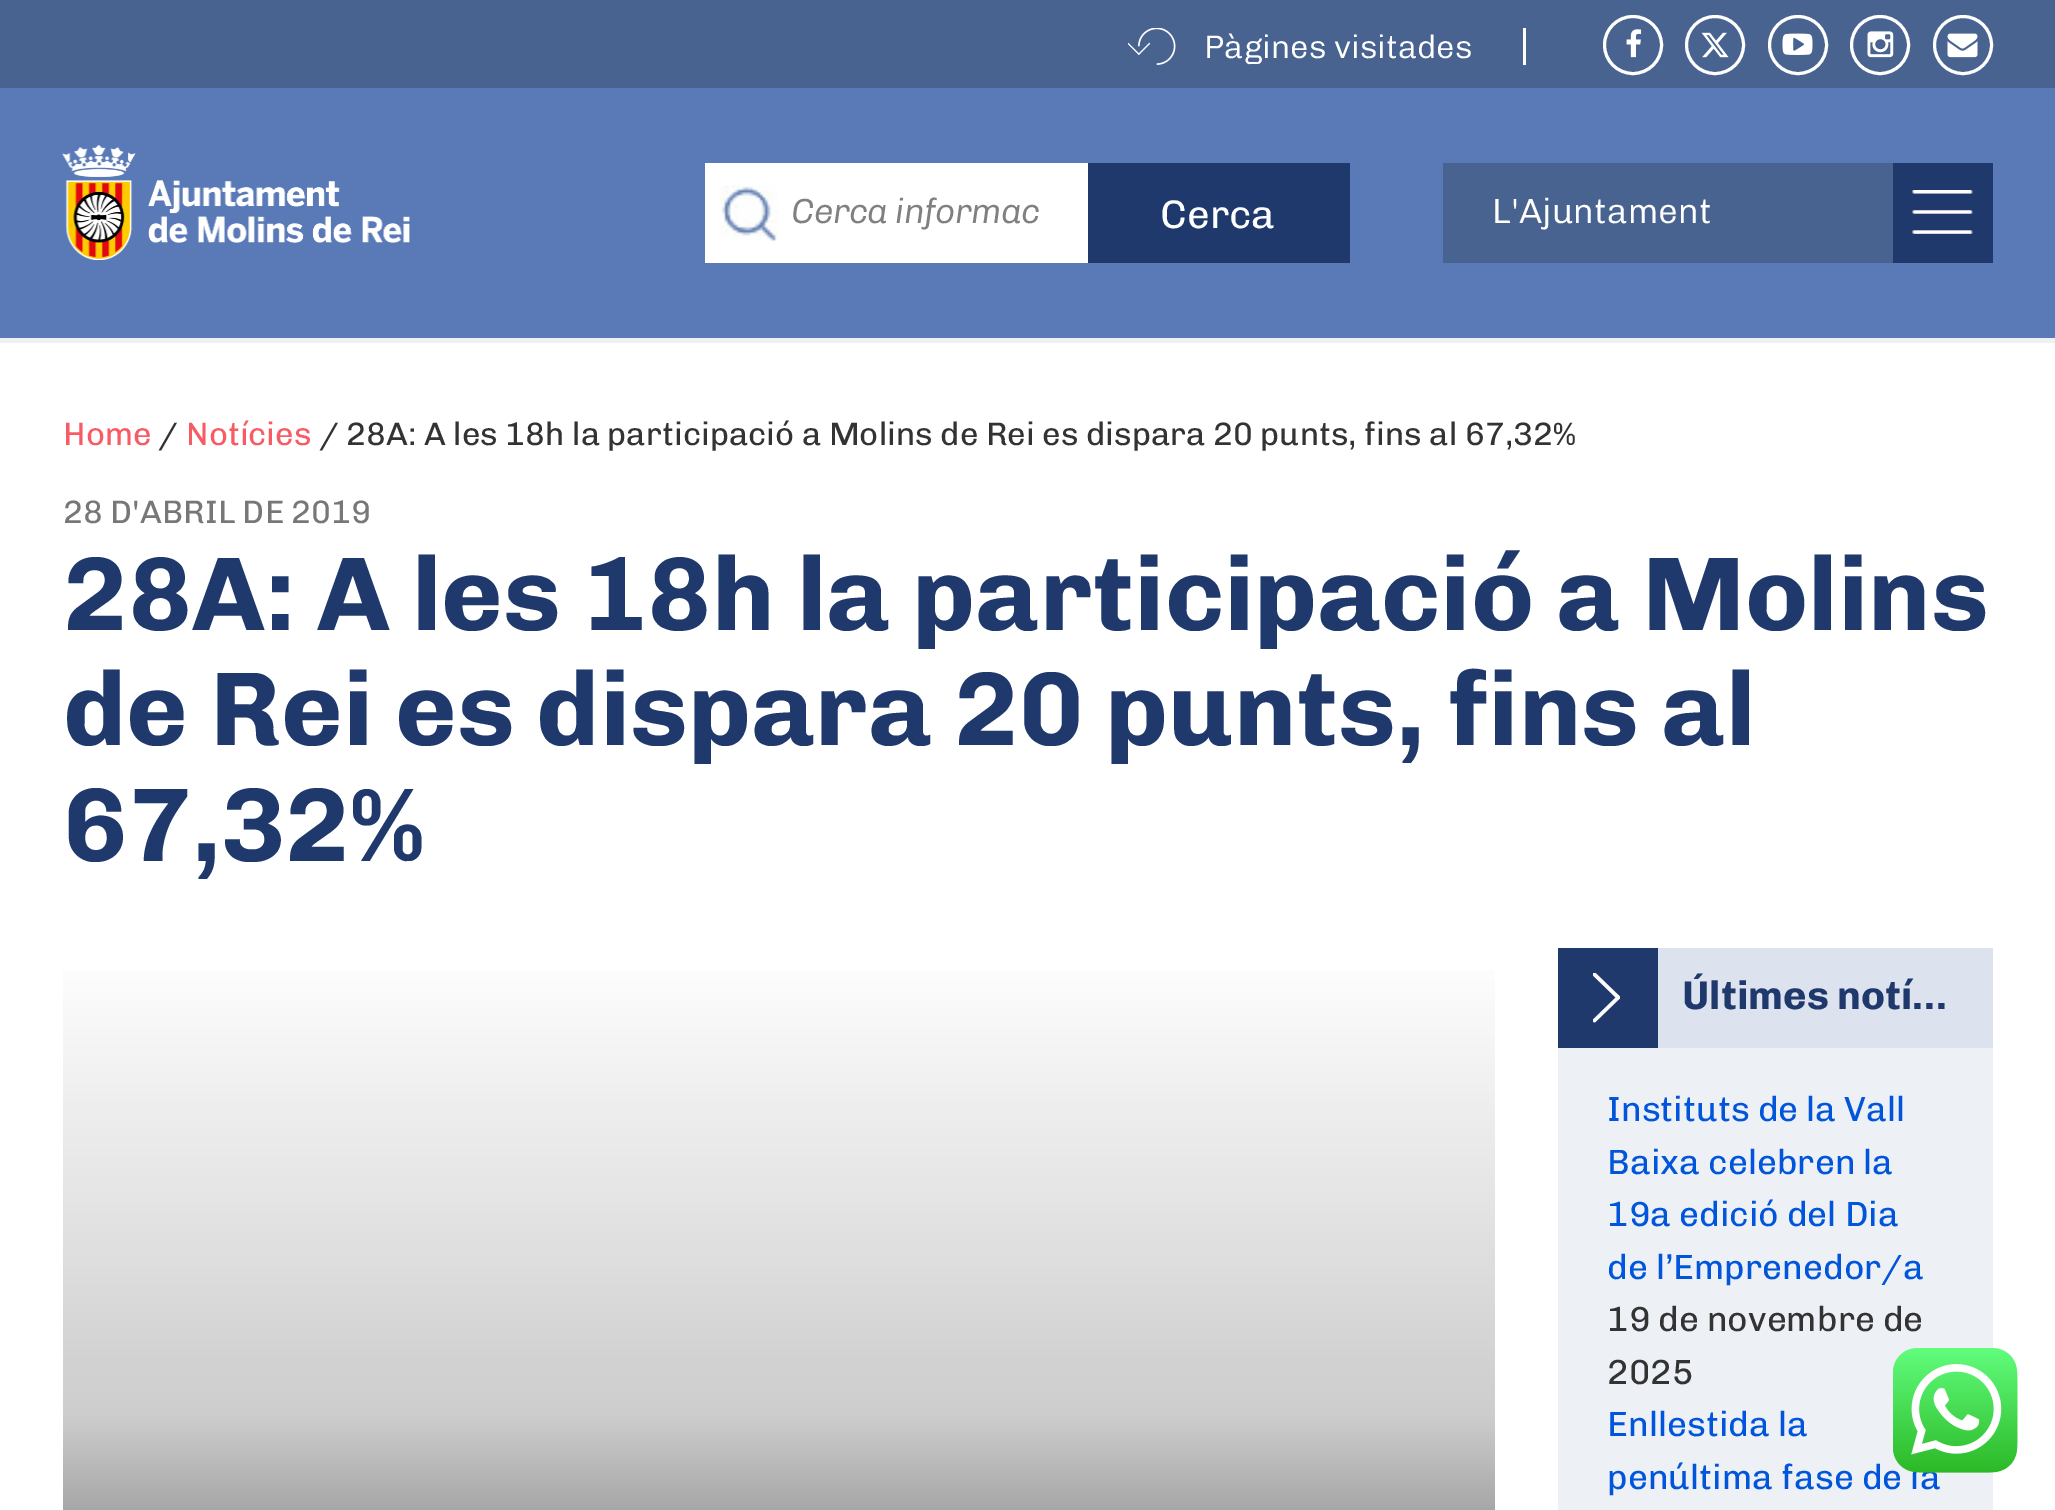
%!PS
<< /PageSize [2055 1510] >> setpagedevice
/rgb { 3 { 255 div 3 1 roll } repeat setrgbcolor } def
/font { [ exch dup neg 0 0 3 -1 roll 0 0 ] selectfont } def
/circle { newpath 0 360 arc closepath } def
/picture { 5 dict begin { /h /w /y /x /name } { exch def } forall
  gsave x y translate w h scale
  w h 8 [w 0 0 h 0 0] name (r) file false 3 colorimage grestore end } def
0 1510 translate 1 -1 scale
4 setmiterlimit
255 255 255 rgb
0 0 2055 1510 rectfill
[
  [0 88 2055 250 90 122 183]
  [0 338 2055 5 237 240 245]
  [0 0 2055 88 72 99 144]
] { aload pop rgb rectfill } forall
(img/1.rgb) 1128 28 48 37 picture
255 255 255 rgb
1523 28 3 37 rectfill
3 setlinewidth
1633 45 28.5 circle stroke
(img/2.rgb) 1626 29 16 29 picture
1715 45 28.5 circle stroke
(img/3.rgb) 1701 32 28 26 picture
1798 45 28.5 circle stroke
(img/4.rgb) 1782 33 31 22 picture
1880 45 28.5 circle stroke
(img/5.rgb) 1867 31 27 27 picture
1963 45 28.5 circle stroke
(img/6.rgb) 1947 33 31 25 picture
(img/7.rgb) 62 145 348 115 picture
705 163 383 100 rectfill
(img/8.rgb) 720 185 58 56 picture
[
  [1088 163 262 100 31 57 109]
  [1443 163 450 100 72 99 144]
  [1893 163 100 100 31 57 109]
] { aload pop rgb rectfill } forall
(img/9.rgb) 1912 190 61 44 picture
gsave 63 971 moveto 1495 971 lineto 1495 1510 lineto 63 1510 lineto closepath clip newpath
<< /ShadingType 2 /ColorSpace /DeviceRGB /Coords [779 948 779 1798] /Extend [true true] /Function << /FunctionType 3 /Domain [0 1] /Functions [<< /FunctionType 2 /Domain [0 1] /C0 [1 1 1] /C1 [0.804 0.804 0.804] /N 1 >> << /FunctionType 2 /Domain [0 1] /C0 [0.804 0.804 0.804] /C1 [0.2 0.2 0.2] /N 1 >>] /Bounds [0.55] /Encode [0 1 0 1] >> >> shfill grestore
[
  [1558 1048 435 462 237 240 245]
  [1658 948 335 100 220 226 238]
  [1558 948 100 100 31 57 109]
] { aload pop rgb rectfill } forall
(img/10.rgb) 1593 973 27 50 picture
/Chivo-Light 32.5 font
255 255 255 rgb
1204 58 moveto (Pàgines visitades) show
/Chivo-LightItalic 35 font
128 128 128 rgb
791 223 moveto -0.75 0 (Cerca informac) ashow
/Chivo-Regular 40 font
255 255 255 rgb
1160 228 moveto (Cerca) show
/Chivo-Light 35 font
1492 223 moveto (L'Ajuntament) show
/Chivo-Regular 32.5 font
247 92 101 rgb
63 445 moveto (Home) show
51 51 51 rgb
158 445 moveto (/) show
247 92 101 rgb
186 445 moveto (Notícies) show
51 51 51 rgb
319 445 moveto (/ 28A: A les 18h la participació a Molins de Rei es dispara 20 punts, fins al 67,32%) show
119 119 119 rgb
63 523 moveto (28 D'ABRIL DE 2019) show
/Chivo-Bold 105 font
31 57 109 rgb
[
  [(28A: A les 18h la participació a Molins) 63 630]
  [(de Rei es dispara 20 punts, fins al) 63 745]
  [(67,32%) 63 861]
] { aload pop moveto show } forall
/Chivo-Bold 40 font
1682 1009 moveto (Últimes notí…) show
/Chivo-Regular 35 font
0 85 219 rgb
[
  [(Instituts de la Vall) 1607 1121]
  [(Baixa celebren la) 1607 1174]
  [(19a edició del Dia) 1607 1226]
  [(de l’Emprenedor/a) 1607 1279]
] { aload pop moveto show } forall
51 51 51 rgb
1607 1331 moveto (19 de novembre de) show
1607 1384 moveto (2025) show
0 85 219 rgb
1607 1436 moveto (Enllestida la) show
1607 1489 moveto (penúltima fase de la) show
(img/11.rgb) 1893 1348 125 125 picture
showpage
